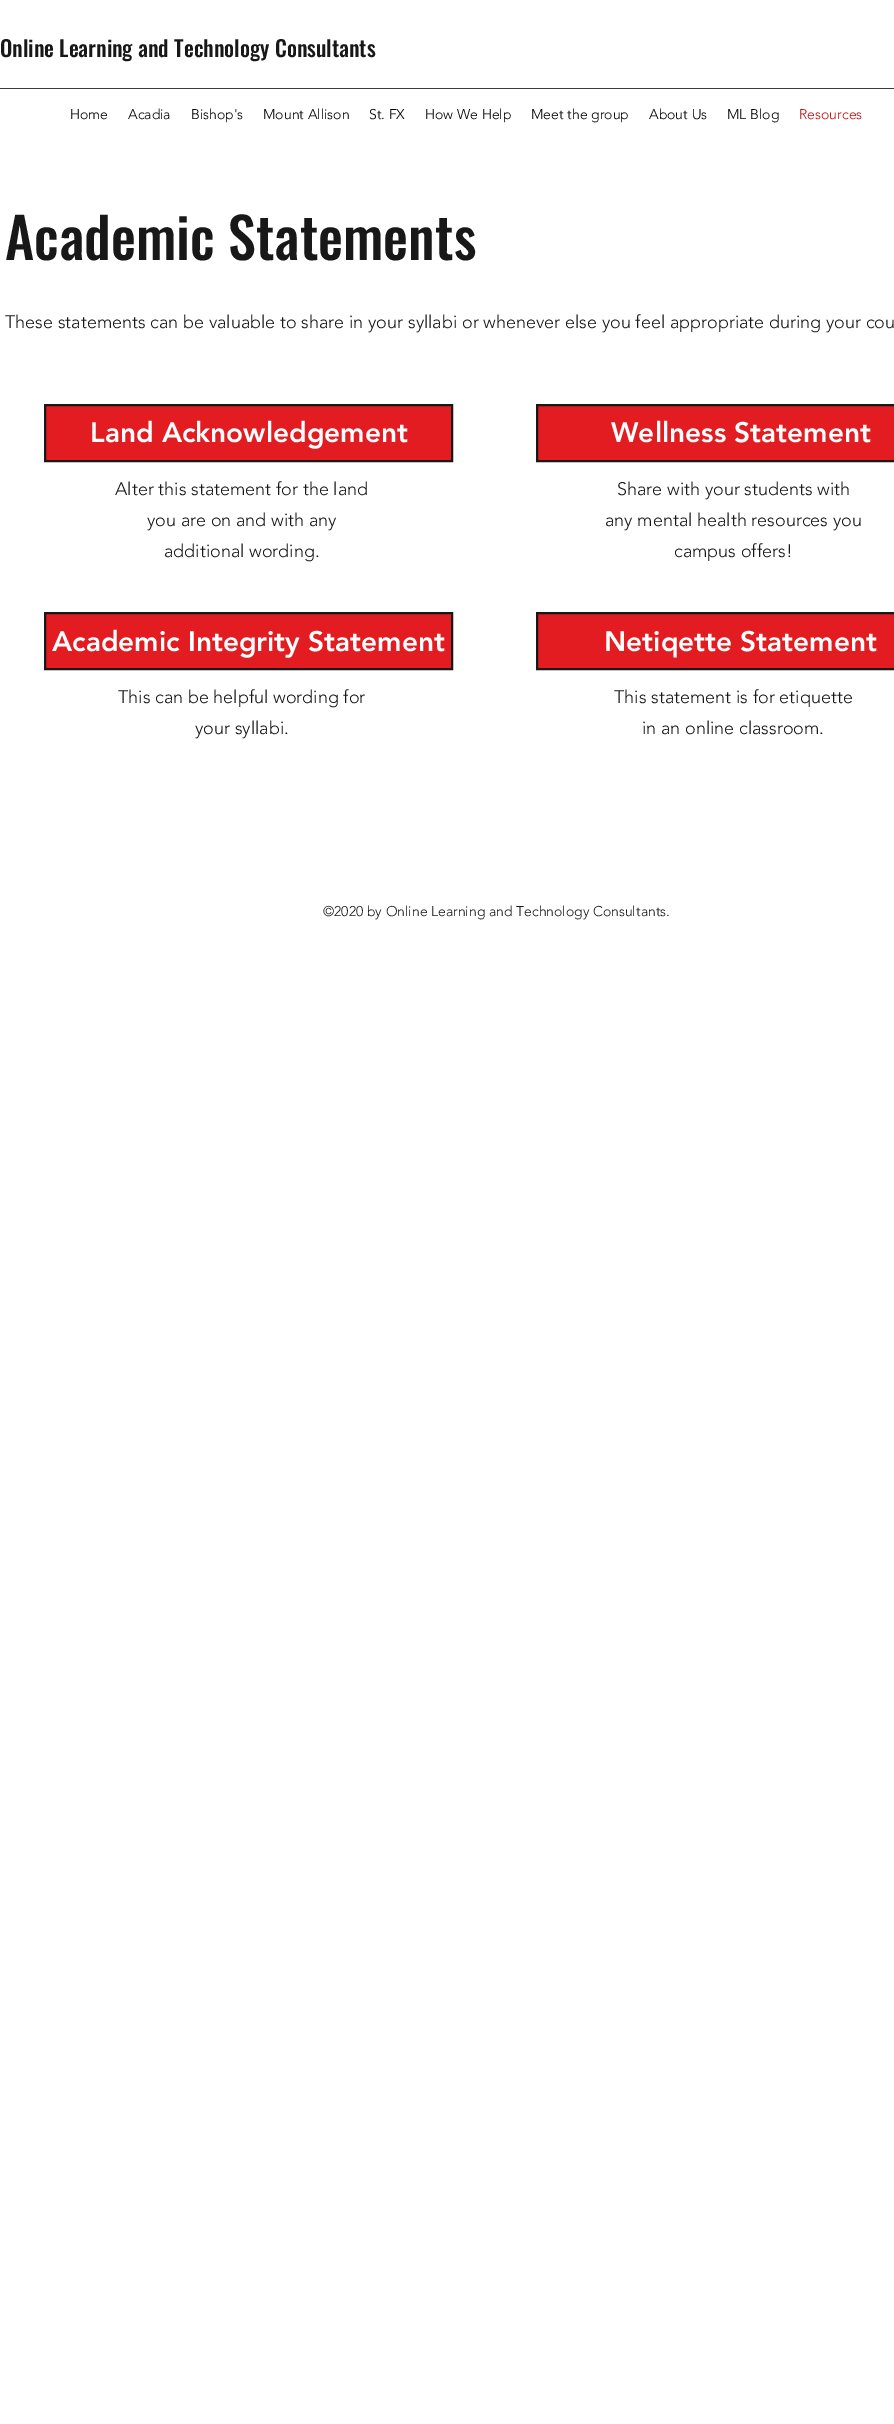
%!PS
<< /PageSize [894 2424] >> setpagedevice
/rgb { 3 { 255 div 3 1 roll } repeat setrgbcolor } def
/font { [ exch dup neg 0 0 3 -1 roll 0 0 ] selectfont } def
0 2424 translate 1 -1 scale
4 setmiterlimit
255 255 255 rgb
0 0 894 2424 rectfill
59 59 59 rgb
0 88 894 1 rectfill
226 28 33 rgb
45 405 moveto 452 405 lineto 452 461 lineto 45 461 lineto closepath gsave fill grestore
24 24 24 rgb
2 setlinewidth
stroke
226 28 33 rgb
45 613 moveto 452 613 lineto 452 669 lineto 45 669 lineto closepath gsave fill grestore
24 24 24 rgb
stroke
226 28 33 rgb
537 405 moveto 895 405 lineto 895 461 lineto 537 461 lineto closepath gsave fill grestore
24 24 24 rgb
stroke
226 28 33 rgb
537 613 moveto 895 613 lineto 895 669 lineto 537 669 lineto closepath gsave fill grestore
24 24 24 rgb
stroke
/Oswald-Medium 22 font
0 57 moveto (Online Learning and Technology Consultants) show
/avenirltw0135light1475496-Light 14 font
0 0 0 rgb
[
  [(Home) 70 119]
  [(Acadia) 128 119]
  [(Bishop's) 191 119]
  [(Mount Allison) 263 119]
  [(St. FX) 369 119]
  [(How We Help) 425 119]
  [(Meet the group) 531 119]
  [(About Us) 649 119]
  [(ML Blog) 727 119]
] { aload pop moveto show } forall
187 13 13 rgb
799 119 moveto (Resources) show
/Oswald-Medium 56 font
24 24 24 rgb
5 260 moveto (Academic Statements) show
/avenirltw0135light1475496-Light 18 font
5 328 moveto (These statements can be valuable to share in your syllabi or whenever else you feel appropriate during your cou) show
/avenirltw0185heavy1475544-Black 28 font
255 255 255 rgb
90 442 moveto (Land Acknowledgement) show
/avenirltw0135light1475496-Light 18 font
24 24 24 rgb
[
  [(Alter this statement for the land) 115 495]
  [(you are on and with any) 147 526]
  [(additional wording.) 164 557]
] { aload pop moveto show } forall
/avenirltw0185heavy1475544-Black 28 font
255 255 255 rgb
52 651 moveto (Academic Integrity Statement) show
/avenirltw0135light1475496-Light 18 font
24 24 24 rgb
118 703 moveto (This can be helpful wording for) show
195 734 moveto (your syllabi.) show
/avenirltw0185heavy1475544-Black 28 font
255 255 255 rgb
611 442 moveto (Wellness Statement) show
/avenirltw0135light1475496-Light 18 font
24 24 24 rgb
[
  [(Share with your students with) 617 495]
  [(any mental health resources you) 605 526]
  [(campus offers!) 674 557]
] { aload pop moveto show } forall
/avenirltw0185heavy1475544-Black 28 font
255 255 255 rgb
604 651 moveto (Netiqette Statement) show
/avenirltw0135light1475496-Light 18 font
24 24 24 rgb
614 703 moveto (This statement is for etiquette) show
642 734 moveto (in an online classroom.) show
/avenirltw0135light1475496-Light 14 font
323 916 moveto (©2020 by Online Learning and Technology Consultants.) show
showpage
